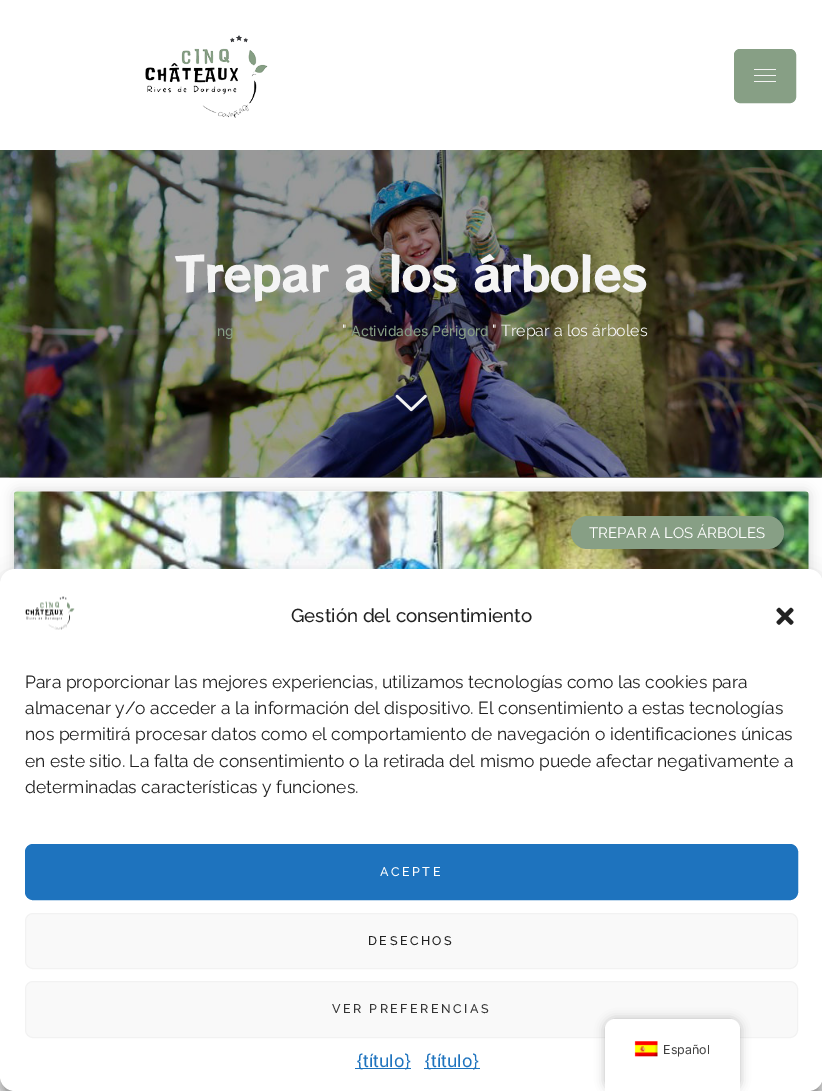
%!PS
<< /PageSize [822 1091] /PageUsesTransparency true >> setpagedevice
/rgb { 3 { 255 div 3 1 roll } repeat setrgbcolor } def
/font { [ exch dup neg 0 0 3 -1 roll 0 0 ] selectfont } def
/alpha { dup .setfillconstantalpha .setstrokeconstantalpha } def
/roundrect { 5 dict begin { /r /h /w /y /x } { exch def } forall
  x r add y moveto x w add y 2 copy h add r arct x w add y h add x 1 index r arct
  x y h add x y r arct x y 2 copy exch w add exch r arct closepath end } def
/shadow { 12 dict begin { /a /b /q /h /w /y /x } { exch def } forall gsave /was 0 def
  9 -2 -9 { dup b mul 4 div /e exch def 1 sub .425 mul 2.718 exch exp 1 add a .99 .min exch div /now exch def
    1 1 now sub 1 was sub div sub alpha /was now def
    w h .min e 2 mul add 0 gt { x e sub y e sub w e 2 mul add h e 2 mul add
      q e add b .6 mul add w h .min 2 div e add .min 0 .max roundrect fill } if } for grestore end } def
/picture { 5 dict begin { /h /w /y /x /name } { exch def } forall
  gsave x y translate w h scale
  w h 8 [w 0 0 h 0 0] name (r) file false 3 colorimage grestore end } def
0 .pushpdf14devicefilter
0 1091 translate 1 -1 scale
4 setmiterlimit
255 255 255 rgb
0 0 822 1091 rectfill
(img/1.rgb) 145 35 123 83 picture
135 159 133 rgb
734.5 49.5 61 53 5.5 roundrect gsave fill grestore
stroke
[
  [754 69 22 1 244 244 244]
  [754 75 22 1 244 244 244]
  [754 81 22 1 244 244 244]
] { aload pop rgb rectfill } forall
(img/2.rgb) 0 150 822 328 picture
(img/3.rgb) 395 394 32 18 picture
(img/4.rgb) 0 477 822 614 picture
0 0 0 rgb
14 491 795 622 4 6 0.15 shadow
255 255 255 rgb
14 491 795 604 4 roundrect fill
(img/5.rgb) 13 491 796 79 picture
135 159 133 rgb
571 516 213 33 16.5 roundrect fill
0 0 0 rgb
0 576 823 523 15 4 0.23 shadow
0 581 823 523 15 12.5 0.19 shadow
255 255 255 rgb
0 569 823 522 15 roundrect fill
(img/6.rgb) 25 596 50 34 picture
(img/7.rgb) 776 607 18 18 picture
30 115 190 rgb
25.5 844.5 772 55 7.5 roundrect gsave fill grestore
stroke
249 249 249 rgb
25.5 913.5 772 55 7.5 roundrect gsave fill grestore
242 242 242 rgb
stroke
249 249 249 rgb
25.5 981.5 772 56 7.5 roundrect gsave fill grestore
242 242 242 rgb
stroke
30 115 190 rgb
355 1068 56 1 rectfill
424 1068 56 1 rectfill
0 0 0 rgb
605 1019 135 72 10 5 0.25 shadow
255 255 255 rgb
615 1019 moveto 730 1019 lineto 735.5 1019 740 1023.5 740 1029 curveto 740 1091 lineto 605 1091 lineto 605 1029 lineto 605 1023.5 609.5 1019 615 1019 curveto closepath fill
(img/8.rgb) 634 1041 24 16 picture
/RocknRollOne-Bold 46 font
244 244 244 rgb
175 292 moveto (Trepar a los árboles) show
/Inter-Regular 14 font
135 159 133 rgb
217 336 moveto (ng) show
/Raleway-Regular 16 font
244 244 244 rgb
342 336 moveto (") show
/Inter-Regular 14 font
135 159 133 rgb
351 336 moveto (Actividades Périgord) show
/Raleway-Regular 16 font
244 244 244 rgb
492 336 moveto (" Trepar a los árboles) show
/Raleway-Regular 15 font
255 255 255 rgb
589 538 moveto (TREPAR A LOS ÁRBOLES) show
/Raleway-Medium 18.75 font
34 34 34 rgb
291 622 moveto (Gestión del consentimiento) show
/Raleway-Regular 17.5 font
[
  [(Para proporcionar las mejores experiencias, utilizamos tecnologías como las cookies para) 25 688]
  [(almacenar y/o acceder a la información del dispositivo. El consentimiento a estas tecnologías) 25 714]
  [(nos permitirá procesar datos como el comportamiento de navegación o identificaciones únicas) 25 740]
  [(en este sitio. La falta de consentimiento o la retirada del mismo puede afectar negativamente a) 25 767]
  [(determinadas características y funciones.) 25 793]
] { aload pop moveto show } forall
/Raleway-Medium 12.5 font
255 255 255 rgb
380 876 moveto 2.5 0 (ACEPTE) ashow
34 34 34 rgb
368 945 moveto 2.5 0 (DESECHOS) ashow
51 51 51 rgb
332 1013 moveto 2.5 0 (VER PREFERENCIAS) ashow
/Inter-Regular 17.5 font
30 115 190 rgb
356 1067 moveto ({título}) show
424 1067 moveto ({título}) show
/Inter-Regular 12.5 font
64 64 64 rgb
663 1054 moveto (Español) show
.poppdf14devicefilter showpage
